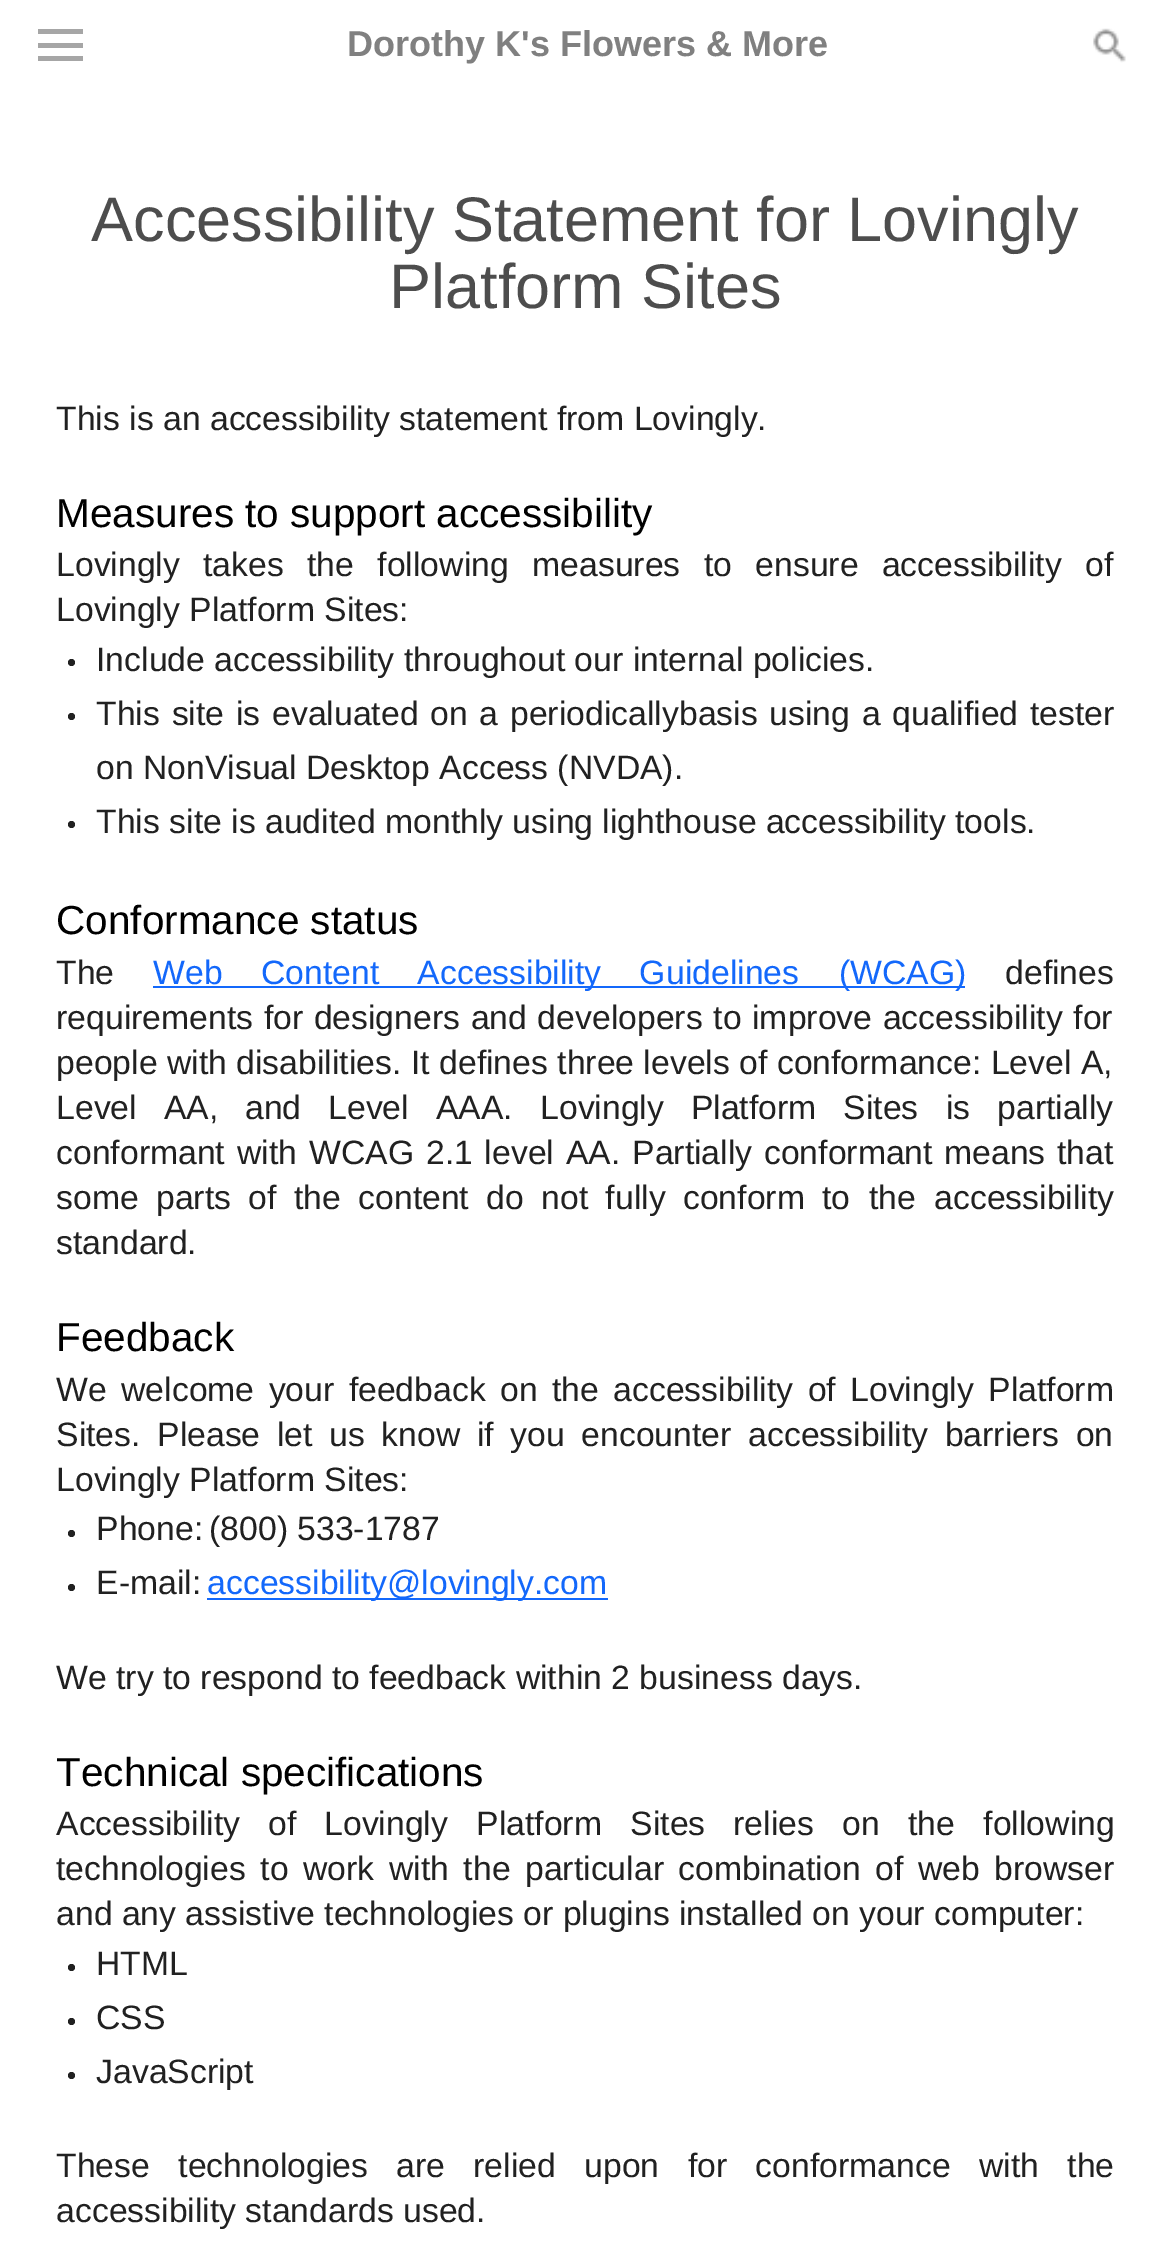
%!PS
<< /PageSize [1170 2260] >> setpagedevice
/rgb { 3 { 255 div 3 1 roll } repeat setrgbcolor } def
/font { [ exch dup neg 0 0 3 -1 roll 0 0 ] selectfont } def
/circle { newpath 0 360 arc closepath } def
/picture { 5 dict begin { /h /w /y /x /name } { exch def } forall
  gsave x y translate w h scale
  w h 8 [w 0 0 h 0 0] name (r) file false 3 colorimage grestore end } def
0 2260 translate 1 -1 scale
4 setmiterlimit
255 255 255 rgb
0 0 1170 2260 rectfill
[
  [38 43 45 5 166 166 166]
  [38 29 45 5 166 166 166]
  [38 56 45 5 166 166 166]
] { aload pop rgb rectfill } forall
(img/1.rgb) 1093 28 33 35 picture
33 33 33 rgb
71.5 662.5 3.5 circle fill
71.5 716.5 3.5 circle fill
71.5 824.5 3.5 circle fill
19 104 251 rgb
153 986 812 2 rectfill
33 33 33 rgb
71.5 1533.5 3.5 circle fill
71.5 1587.5 3.5 circle fill
19 104 251 rgb
207 1598 401 2 rectfill
33 33 33 rgb
71.5 1967.5 3.5 circle fill
71.5 2021.5 3.5 circle fill
71.5 2075.5 3.5 circle fill
/LiberationSans-Bold 36 font
128 128 128 rgb
347 56 moveto (Dorothy K's Flowers & More) show
/LiberationSans-Regular 63 font
77 77 77 rgb
91 241 moveto (Accessibility Statement for Lovingly) show
389 308 moveto (Platform Sites) show
/LiberationSans-Regular 33.75 font
33 33 33 rgb
56 430 moveto (This is an accessibility statement from Lovingly.) show
/LiberationSans-Regular 40.5 font
0 0 0 rgb
56 527 moveto (Measures to support accessibility) show
/LiberationSans-Regular 33.75 font
33 33 33 rgb
56 576 moveto (Lovingly) show
203 576 moveto 14 0 32 (takes the following measures to ensure accessibility of) widthshow
56 621 moveto (Lovingly Platform Sites:) show
96 671 moveto (Include accessibility throughout our internal policies.) show
96 725 moveto 2.4 0 32 (This site is evaluated on a periodicallybasis using a qualified tester) widthshow
96 779 moveto (on NonVisual Desktop Access \(NVDA\).) show
96 833 moveto (This site is audited monthly using lighthouse accessibility tools.) show
/LiberationSans-Regular 40.5 font
0 0 0 rgb
56 934 moveto (Conformance status) show
/LiberationSans-Regular 33.75 font
33 33 33 rgb
56 984 moveto (The) show
19 104 251 rgb
153 984 moveto 29 0 32 (Web Content Accessibility Guidelines) widthshow
839 984 moveto (\(WCAG\)) show
33 33 33 rgb
1005 984 moveto (defines) show
56 1029 moveto 1.25 0 32 (requirements for designers and developers to improve accessibility for) widthshow
56 1074 moveto (people with disabilities. It) show
439 1074 moveto (defines three levels of conformance: Level A,) show
56 1119 moveto 17.5 0 32 (Level AA, and Level AAA.) widthshow
540 1119 moveto 17.5 0 32 (Lovingly Platform Sites) widthshow
[
  [(is) 946 1119]
  [(partially) 997 1119]
  [(conformant) 56 1164]
  [(with) 237 1164]
] { aload pop moveto show } forall
309 1164 moveto 2.4 0 32 (WCAG 2.1 level AA) widthshow
611 1164 moveto (.) show
632 1164 moveto 2.4 0 32 (Partially conformant) widthshow
944 1164 moveto 2.4 0 32 (means that) widthshow
56 1209 moveto 8 0 32 (some parts of the content do not fully conform to) widthshow
[
  [(the) 869 1209]
  [(accessibility) 934 1209]
  [(standard.) 56 1254]
] { aload pop moveto show } forall
/LiberationSans-Regular 40.5 font
0 0 0 rgb
56 1351 moveto (Feedback) show
/LiberationSans-Regular 33.75 font
33 33 33 rgb
56 1401 moveto 5 0 32 (We welcome your feedback on the accessibility of) widthshow
850 1401 moveto 5 0 32 (Lovingly Platform) widthshow
56 1446 moveto (Sites.) show
157 1446 moveto 7.25 0 32 (Please let us know if you encounter accessibility barriers on) widthshow
[
  [(Lovingly Platform Sites:) 56 1491]
  [(Phone:) 96 1540]
  [(\(800\) 533-1787) 209 1540]
  [(E-mail:) 96 1594]
] { aload pop moveto show } forall
19 104 251 rgb
207 1594 moveto (accessibility@lovingly.com) show
33 33 33 rgb
56 1689 moveto (We try to respond to feedback within 2 business days.) show
/LiberationSans-Regular 40.5 font
0 0 0 rgb
56 1786 moveto (Technical specifications) show
/LiberationSans-Regular 33.75 font
33 33 33 rgb
56 1835 moveto 19 0 32 (Accessibility of) widthshow
324 1835 moveto 19 0 32 (Lovingly Platform Sites) widthshow
733 1835 moveto 19 0 32 (relies on the following) widthshow
56 1880 moveto 5.25 0 32 (technologies to work with the particular combination of web browser) widthshow
[
  [(and any assistive technologies or plugins installed on your computer:) 56 1925]
  [(HTML) 96 1975]
  [(CSS) 96 2029]
  [(JavaScript) 96 2083]
] { aload pop moveto show } forall
56 2177 moveto 19 0 32 (These technologies are relied upon for conformance with the) widthshow
56 2222 moveto (accessibility standards used.) show
showpage
